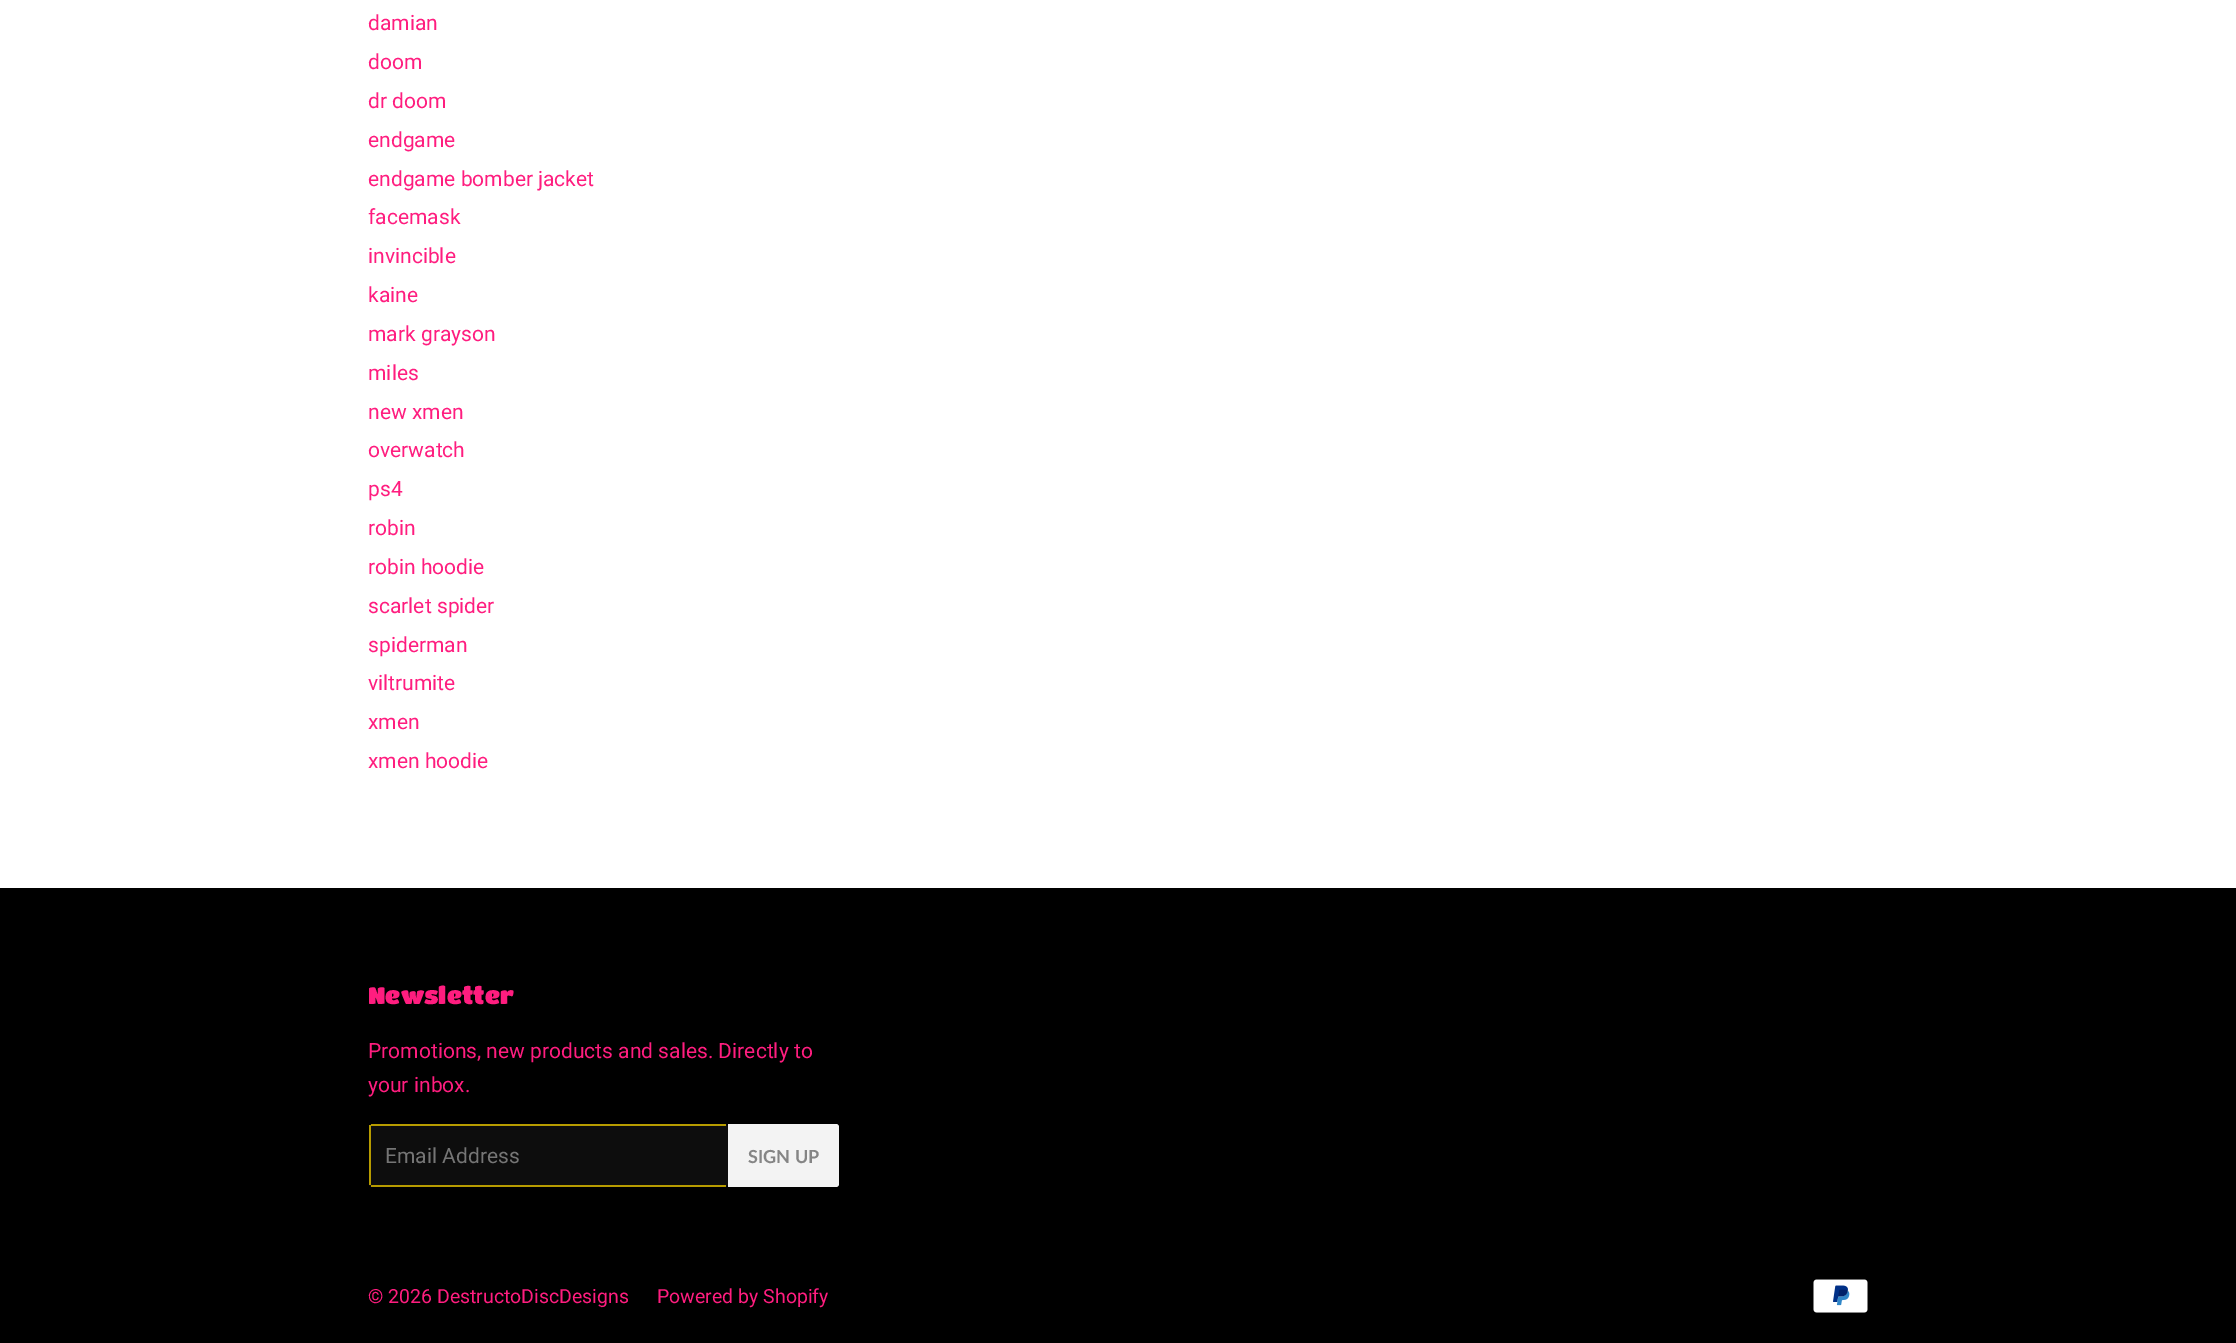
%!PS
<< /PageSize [2236 1343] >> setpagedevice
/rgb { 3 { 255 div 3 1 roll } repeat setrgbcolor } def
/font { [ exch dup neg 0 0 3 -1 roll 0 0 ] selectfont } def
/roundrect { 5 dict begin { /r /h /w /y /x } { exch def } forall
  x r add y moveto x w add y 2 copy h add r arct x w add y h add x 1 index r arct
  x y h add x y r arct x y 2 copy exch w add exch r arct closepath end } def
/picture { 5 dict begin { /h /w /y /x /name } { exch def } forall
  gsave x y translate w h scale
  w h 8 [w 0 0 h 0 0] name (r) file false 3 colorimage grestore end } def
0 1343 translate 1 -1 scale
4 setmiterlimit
255 255 255 rgb
0 0 2236 1343 rectfill
0 0 0 rgb
0 888 2236 455 rectfill
13 13 13 rgb
369 1124 359 63 3 roundrect fill
[
  [371 1124 355 2 182 155 0]
  [371 1185 355 2 182 155 0]
  [369 1125 2 60 182 155 0]
] { aload pop rgb rectfill } forall
243 243 243 rgb
728 1124 moveto 836 1124 lineto 837.5 1124 839 1125.5 839 1127 curveto 839 1184 lineto 839 1185.5 837.5 1187 836 1187 curveto 728 1187 lineto closepath fill
(img/1.rgb) 1813 1279 55 34 picture
/Roboto-Regular 21 font
255 29 127 rgb
[
  [(damian) 368 30]
  [(doom) 368 69]
  [(dr doom) 368 108]
  [(endgame) 368 147]
  [(endgame bomber jacket) 368 186]
  [(facemask) 368 224]
  [(invincible) 368 263]
  [(kaine) 368 302]
  [(mark grayson) 368 341]
  [(miles) 368 380]
  [(new xmen) 368 419]
  [(overwatch) 368 457]
  [(ps4) 368 496]
  [(robin) 368 535]
  [(robin hoodie) 368 574]
  [(scarlet spider) 368 613]
  [(spiderman) 368 652]
  [(viltrumite) 368 690]
  [(xmen) 368 729]
  [(xmen hoodie) 368 768]
] { aload pop moveto show } forall
/TitanOne-Regular 23.75 font
368 1004 moveto (Newsletter) show
/Roboto-Regular 21 font
368 1058 moveto (Promotions, new products and sales. Directly to) show
368 1092 moveto (your inbox.) show
117 117 117 rgb
385 1163 moveto (Email Address) show
/Lato-Bold 18 font
133 133 133 rgb
748 1163 moveto (SIGN UP) show
/Roboto-Regular 19.5 font
255 29 127 rgb
368 1303 moveto (© 2026 DestructoDiscDesigns) show
657 1303 moveto (Powered by Shopify) show
showpage
